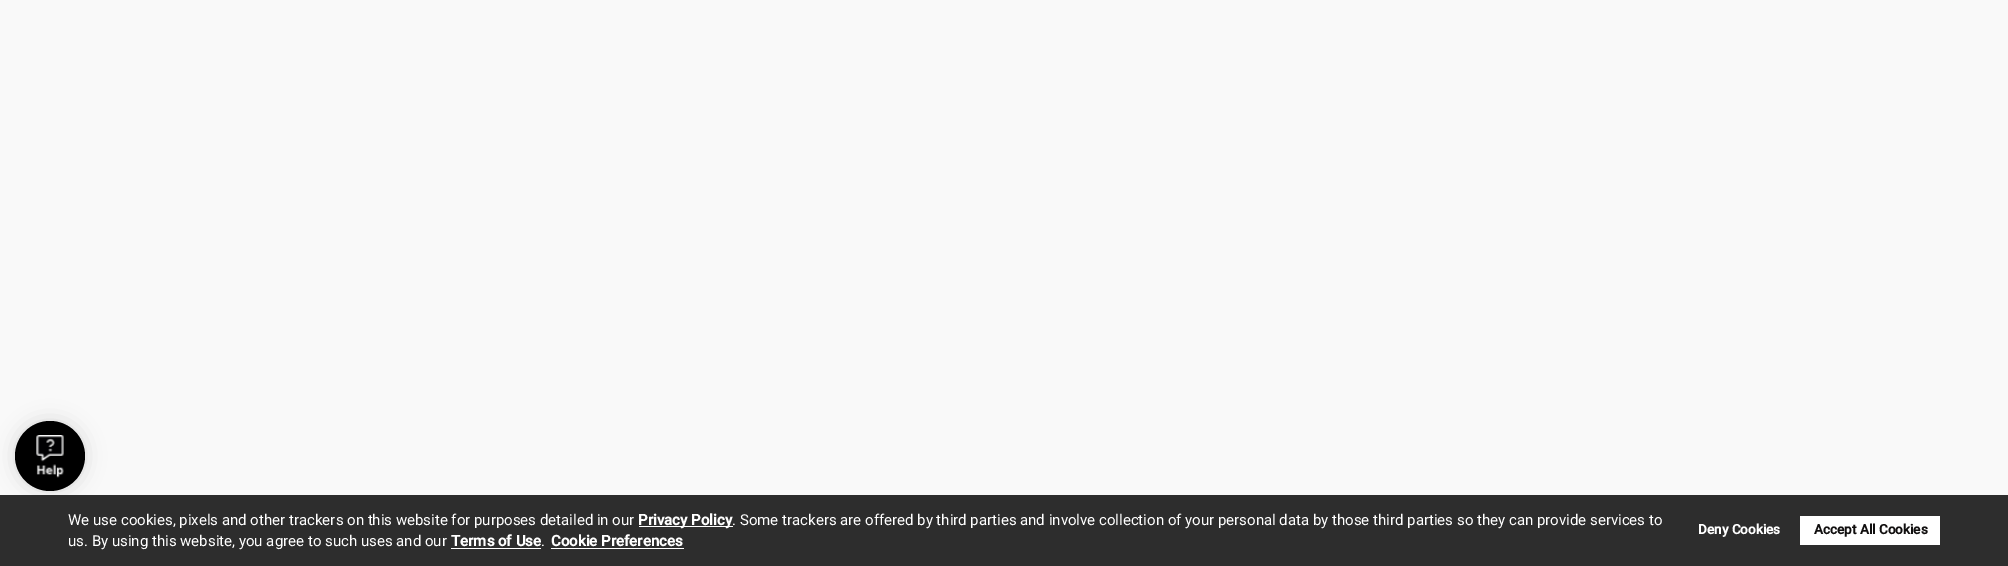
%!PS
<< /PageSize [2008 566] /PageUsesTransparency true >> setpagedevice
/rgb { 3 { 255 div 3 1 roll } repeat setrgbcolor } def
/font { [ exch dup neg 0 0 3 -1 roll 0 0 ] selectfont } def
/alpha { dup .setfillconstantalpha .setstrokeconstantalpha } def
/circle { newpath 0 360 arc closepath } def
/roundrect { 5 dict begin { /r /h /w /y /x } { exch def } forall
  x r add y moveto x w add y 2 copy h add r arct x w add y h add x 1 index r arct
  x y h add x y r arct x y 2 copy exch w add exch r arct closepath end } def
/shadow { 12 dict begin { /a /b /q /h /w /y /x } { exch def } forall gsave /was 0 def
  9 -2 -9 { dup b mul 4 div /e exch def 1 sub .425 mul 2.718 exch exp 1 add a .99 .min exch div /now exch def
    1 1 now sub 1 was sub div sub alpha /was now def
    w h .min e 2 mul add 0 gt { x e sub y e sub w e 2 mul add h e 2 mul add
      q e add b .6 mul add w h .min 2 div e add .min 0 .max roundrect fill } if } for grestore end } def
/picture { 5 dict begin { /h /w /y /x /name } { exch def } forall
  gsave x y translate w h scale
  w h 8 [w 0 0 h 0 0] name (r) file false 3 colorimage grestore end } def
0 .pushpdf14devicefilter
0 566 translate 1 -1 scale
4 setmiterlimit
249 249 249 rgb
0 0 2008 566 rectfill
0 0 0 rgb
15 421 70 70 35 10 0.13 shadow
50 456 35 circle fill
(img/1.rgb) 36 435 28 43 picture
[
  [0 495 2008 71 45 45 45]
  [639 526 94 1 255 255 255]
  [451 548 90 1 255 255 255]
  [551 548 133 1 255 255 255]
  [1800 516 140 29 255 255 255]
] { aload pop rgb rectfill } forall
/Roboto-Regular 15 font
68 525 moveto (We use cookies, pixels and other trackers on this website for purposes detailed in our) show
/Roboto-Bold 15 font
638 525 moveto (Privacy Policy) show
/Roboto-Regular 15 font
732 525 moveto (. Some trackers are offered by third parties and involve collection of your personal data by those third parties so they can provide services to) show
68 546 moveto (us. By using this website, you agree to such uses and our) show
/Roboto-Bold 15 font
451 546 moveto (Terms of Use) show
/Roboto-Regular 15 font
541 546 moveto (.) show
/Roboto-Bold 15 font
551 546 moveto (Cookie Preferences) show
/Roboto-Bold 13.5 font
1698 534 moveto (Deny Cookies) show
18 16 16 rgb
1814 534 moveto (Accept All Cookies) show
.poppdf14devicefilter showpage
